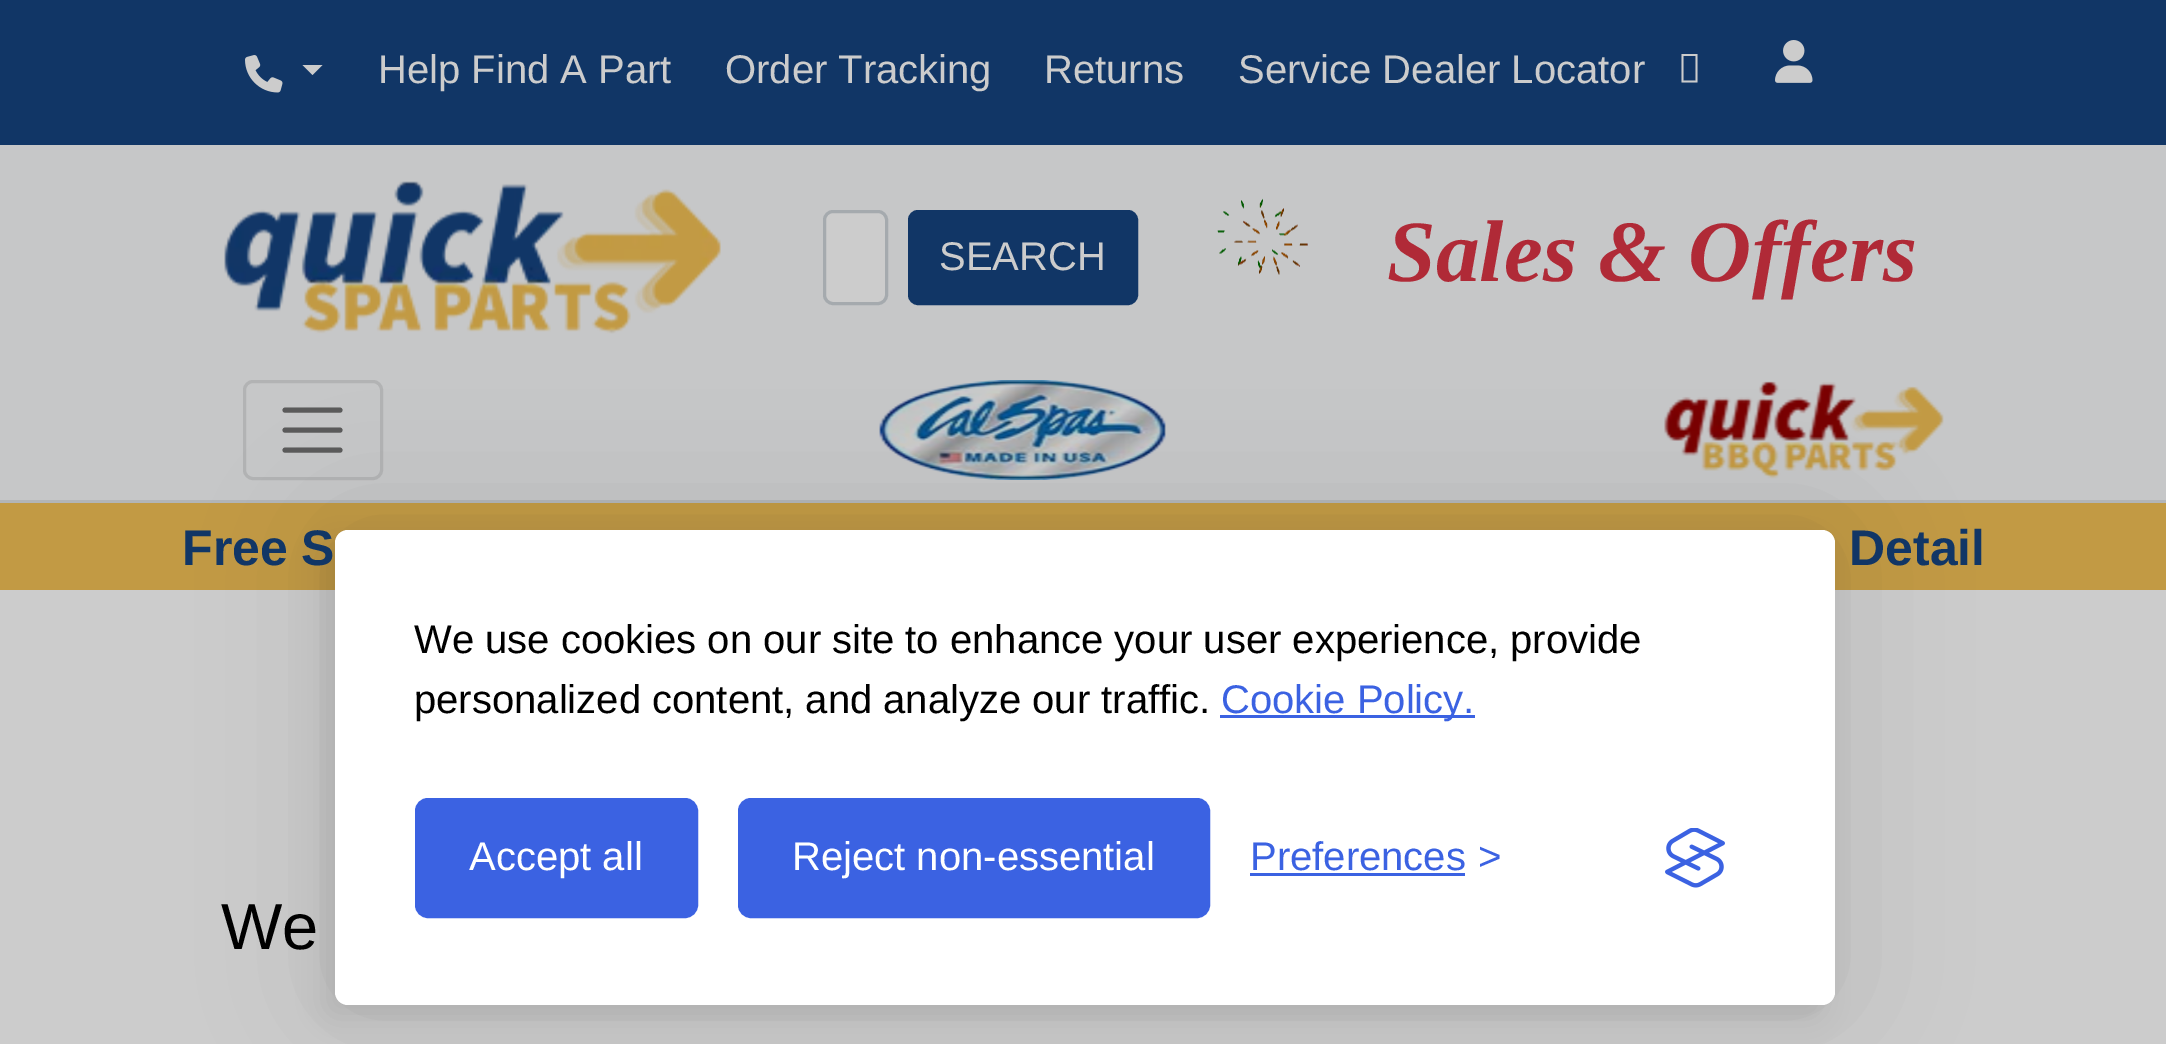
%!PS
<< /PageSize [2166 1044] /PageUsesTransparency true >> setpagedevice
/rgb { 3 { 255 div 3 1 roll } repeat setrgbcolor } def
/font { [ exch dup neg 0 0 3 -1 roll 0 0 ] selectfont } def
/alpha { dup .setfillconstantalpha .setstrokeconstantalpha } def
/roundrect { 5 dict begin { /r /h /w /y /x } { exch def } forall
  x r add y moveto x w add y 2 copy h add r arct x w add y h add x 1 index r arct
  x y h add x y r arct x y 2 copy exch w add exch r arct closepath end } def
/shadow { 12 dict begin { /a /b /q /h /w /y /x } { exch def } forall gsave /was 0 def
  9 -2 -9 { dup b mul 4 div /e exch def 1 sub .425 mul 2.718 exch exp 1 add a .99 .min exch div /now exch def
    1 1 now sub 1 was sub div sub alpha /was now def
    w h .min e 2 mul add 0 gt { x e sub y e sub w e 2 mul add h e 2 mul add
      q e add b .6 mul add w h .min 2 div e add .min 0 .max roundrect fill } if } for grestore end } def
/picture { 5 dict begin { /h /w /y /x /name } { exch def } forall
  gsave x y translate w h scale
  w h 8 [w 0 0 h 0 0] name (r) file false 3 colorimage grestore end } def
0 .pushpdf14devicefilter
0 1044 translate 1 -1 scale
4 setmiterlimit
204 204 204 rgb
0 0 2166 1044 rectfill
17 54 102 rgb
0 0 2166 145 rectfill
(img/1.rgb) 245 55 38 38 picture
204 204 204 rgb
302.5 65 moveto 322.5 65 lineto 312.5 75 lineto closepath fill
1681.5 82.5 moveto 1681.5 54 lineto 1697.5 54 lineto 1697.5 82.5 lineto closepath 1683.5 80.5 moveto 1695.5 80.5 lineto 1695.5 56 lineto 1683.5 56 lineto closepath fill
(img/2.rgb) 1775 40 38 43 picture
198 199 200 rgb
0 145 2166 355 rectfill
(img/3.rgb) 224 181 497 153 picture
204 204 204 rgb
824.5 211.5 62 92 8.5 roundrect gsave fill grestore
165 170 174 rgb
3 setlinewidth
stroke
17 54 102 rgb
909.5 211.5 227 92 8.5 roundrect gsave fill grestore
stroke
(img/4.rgb) 1217 198 91 77 picture
178 181 184 rgb
0 500 2166 3 rectfill
178 179 180 rgb
244.5 381.5 137 97 8.5 roundrect stroke
90 90 90 rgb
5 setlinewidth
1 setlinecap
285 410 moveto 340 410 lineto 285 430 moveto 340 430 lineto 285 450 moveto 340 450 lineto stroke
(img/5.rgb) 879 380 287 100 picture
(img/6.rgb) 1664 381 280 98 picture
194 154 68 rgb
0 503 2166 87 rectfill
0 0 0 rgb
335 530 1500 475 13 62.5 0.1 shadow
323 543 1500 475 13 12.5 0.07 shadow
255 255 255 rgb
335 530 1500 475 13 roundrect fill
59 98 226 rgb
1220 715 255 3 rectfill
417.5 800.5 278 115 10.5 roundrect gsave fill grestore
0 setlinecap
stroke
740.5 800.5 467 115 10.5 roundrect gsave fill grestore
stroke
1250 873 215 3 rectfill
(img/7.rgb) 1665 828 60 60 picture
/LiberationSans-Regular 40 font
204 204 204 rgb
[
  [(Help Find A Part) 378 83]
  [(Order Tracking) 725 83]
  [(Returns) 1044 83]
  [(Service Dealer Locator) 1238 83]
  [(SEARCH) 939 270]
] { aload pop moveto show } forall
/LiberationSerif-BoldItalic 87.5 font
176 42 55 rgb
1387 281 moveto (Sales & Offers) show
/LiberationSans-Bold 50 font
17 54 102 rgb
182 565 moveto (Free S) show
1849 565 moveto (Detail) show
/LiberationSans-Regular 65 font
0 0 0 rgb
221 949 moveto (We) show
/LiberationSans-Regular 40 font
414 653 moveto (We use cookies on our site to enhance your user experience, provide) show
414 713 moveto (personalized content, and analyze our traffic.) show
59 98 226 rgb
1221 713 moveto (Cookie Policy.) show
255 255 255 rgb
469 870 moveto (Accept all) show
792 870 moveto (Reject non-essential) show
59 98 226 rgb
1250 870 moveto (Preferences) show
1478 870 moveto (>) show
.poppdf14devicefilter showpage
